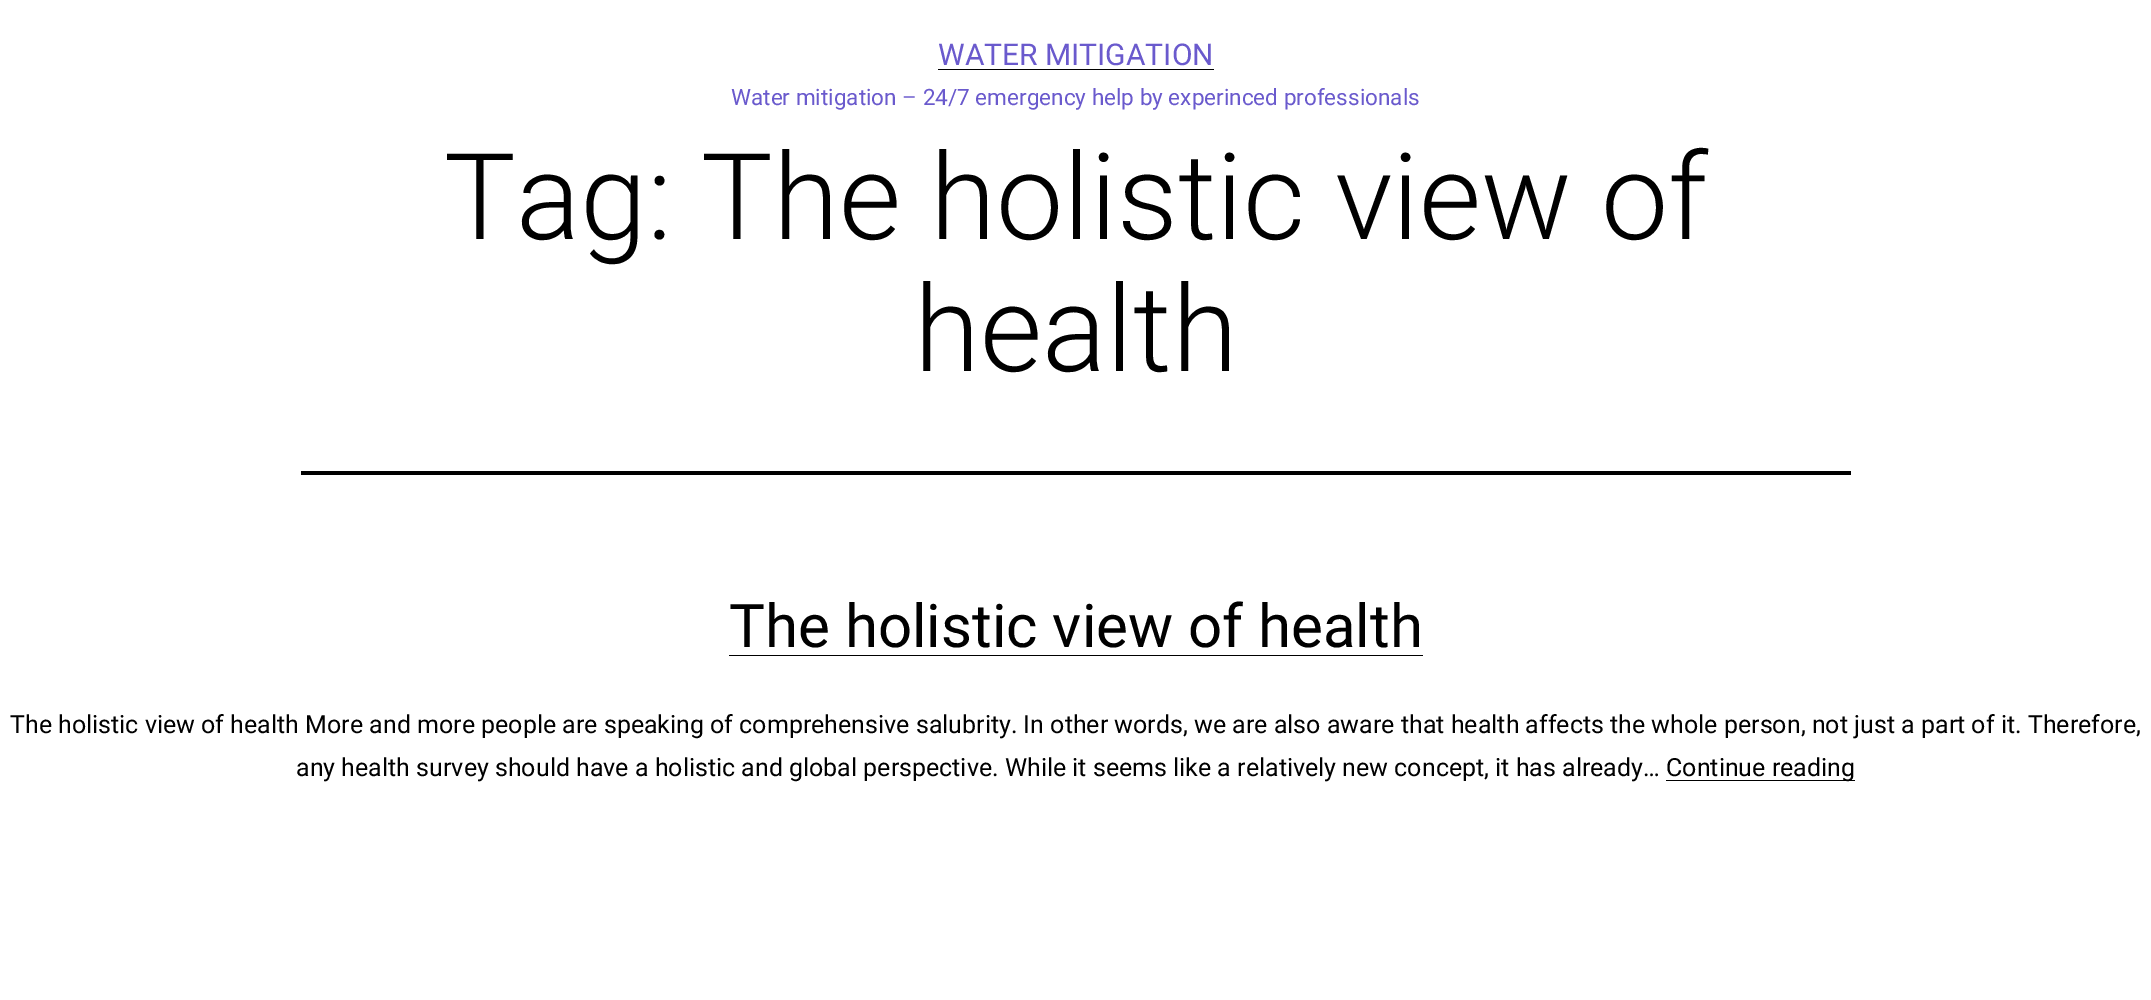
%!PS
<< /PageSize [2151 1000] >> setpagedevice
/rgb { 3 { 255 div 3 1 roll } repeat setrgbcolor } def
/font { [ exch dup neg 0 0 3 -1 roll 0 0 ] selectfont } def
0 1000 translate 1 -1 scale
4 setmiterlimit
255 255 255 rgb
0 0 2151 1000 rectfill
[
  [938 69 276 1 0 0 0]
  [301 471 1550 4 0 0 0]
  [729 655 694 1 0 0 0]
  [1666 780 189 1 0 0 0]
] { aload pop rgb rectfill } forall
/Roboto-Regular 30 font
106 90 205 rgb
938 65 moveto (WATER MITIGATION) show
/Roboto-Regular 22.5 font
731 105 moveto (Water mitigation – 24/7 emergency help by experinced professionals) show
/Roboto-Light 120 font
0 0 0 rgb
444 239 moveto (Tag: The holistic view of) show
914 371 moveto (health) show
/Roboto-Regular 60 font
729 647 moveto (The holistic view of health) show
/Roboto-Regular 25 font
[
  [(The holistic view of health More and more people are speaking of comprehensive salubrity. In other words, we are also aware that health affects the whole person, not just a part of it. Therefore,) 10 733]
  [(any health survey should have a holistic and global perspective. While it seems like a relatively new concept, it has already…) 296 776]
  [(Continue reading) 1666 776]
] { aload pop moveto show } forall
showpage
